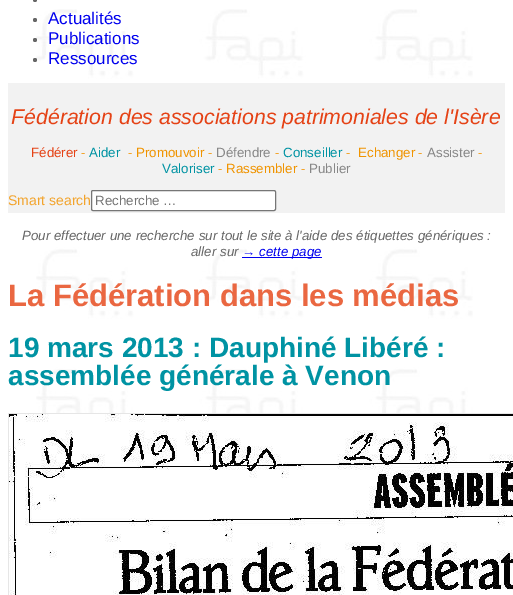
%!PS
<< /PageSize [513 595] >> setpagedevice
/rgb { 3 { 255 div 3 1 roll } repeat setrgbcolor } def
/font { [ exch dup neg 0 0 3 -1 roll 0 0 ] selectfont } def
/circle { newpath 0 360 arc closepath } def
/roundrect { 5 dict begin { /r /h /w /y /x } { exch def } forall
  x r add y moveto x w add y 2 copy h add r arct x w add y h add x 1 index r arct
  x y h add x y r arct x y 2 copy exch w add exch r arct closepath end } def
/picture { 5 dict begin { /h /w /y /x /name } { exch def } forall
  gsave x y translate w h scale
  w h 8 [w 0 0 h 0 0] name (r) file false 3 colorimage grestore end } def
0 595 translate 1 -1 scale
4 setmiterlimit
255 255 255 rgb
0 0 513 595 rectfill
(img/1.rgb) 36 9 437 404 picture
102 102 102 rgb
35 0 2 circle fill
35 20 2 circle fill
35 40 2 circle fill
35 60 2 circle fill
242 242 242 rgb
8 83 497 130 rectfill
255 255 255 rgb
91.5 190.5 184 20 1.5 roundrect gsave fill grestore
118 118 118 rgb
stroke
0 0 238 rgb
242 257 80 1 rectfill
230 230 230 rgb
8.5 413.5 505 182 rectstroke
(img/2.rgb) 9 414 504 181 picture
/LiberationSans-Regular 17 font
0 0 238 rgb
[
  [(Actualités) 48 24]
  [(Publications) 48 44]
  [(Ressources) 48 64]
] { aload pop moveto show } forall
/LiberationSans-Italic 21.3 font
229 66 21 rgb
11 124 moveto (Fédération des associations patrimoniales de l'Isère) show
/LiberationSans-Regular 13.35 font
31 157 moveto (Fédérer) show
243 164 44 rgb
81 157 moveto (-) show
0 147 163 rgb
89 157 moveto (Aider) show
243 164 44 rgb
128 157 moveto (-) show
240 148 0 rgb
136 157 moveto (Promouvoir) show
243 164 44 rgb
208 157 moveto (-) show
135 135 135 rgb
216 157 moveto (Défendre) show
243 164 44 rgb
275 157 moveto (-) show
0 147 163 rgb
283 157 moveto (Conseiller) show
243 164 44 rgb
346 157 moveto (-) show
240 148 0 rgb
358 157 moveto (Echanger) show
243 164 44 rgb
418 157 moveto (-) show
135 135 135 rgb
427 157 moveto (Assister) show
243 164 44 rgb
478 157 moveto (-) show
0 147 163 rgb
162 173 moveto (Valoriser) show
243 164 44 rgb
218 173 moveto (-) show
240 148 0 rgb
226 173 moveto (Rassembler) show
243 164 44 rgb
301 173 moveto (-) show
135 135 135 rgb
309 173 moveto (Publier) show
/LiberationSans-Regular 14 font
243 164 44 rgb
8 205 moveto (Smart search) show
/LiberationSans-Regular 13.35 font
117 117 117 rgb
95 205 moveto (Recherche …) show
/LiberationSans-Italic 13.35 font
102 102 102 rgb
22 240 moveto (Pour effectuer une recherche sur tout le site à l'aide des étiquettes génériques :) show
191 256 moveto (aller sur) show
0 0 238 rgb
242 256 moveto (→ cette page) show
/LiberationSans-Bold 31 font
234 103 65 rgb
8 306 moveto (La Fédération dans les médias) show
/LiberationSans-Bold 28 font
0 147 163 rgb
8 357 moveto (19 mars 2013 : Dauphiné Libéré :) show
8 385 moveto (assemblée générale à Venon) show
showpage
